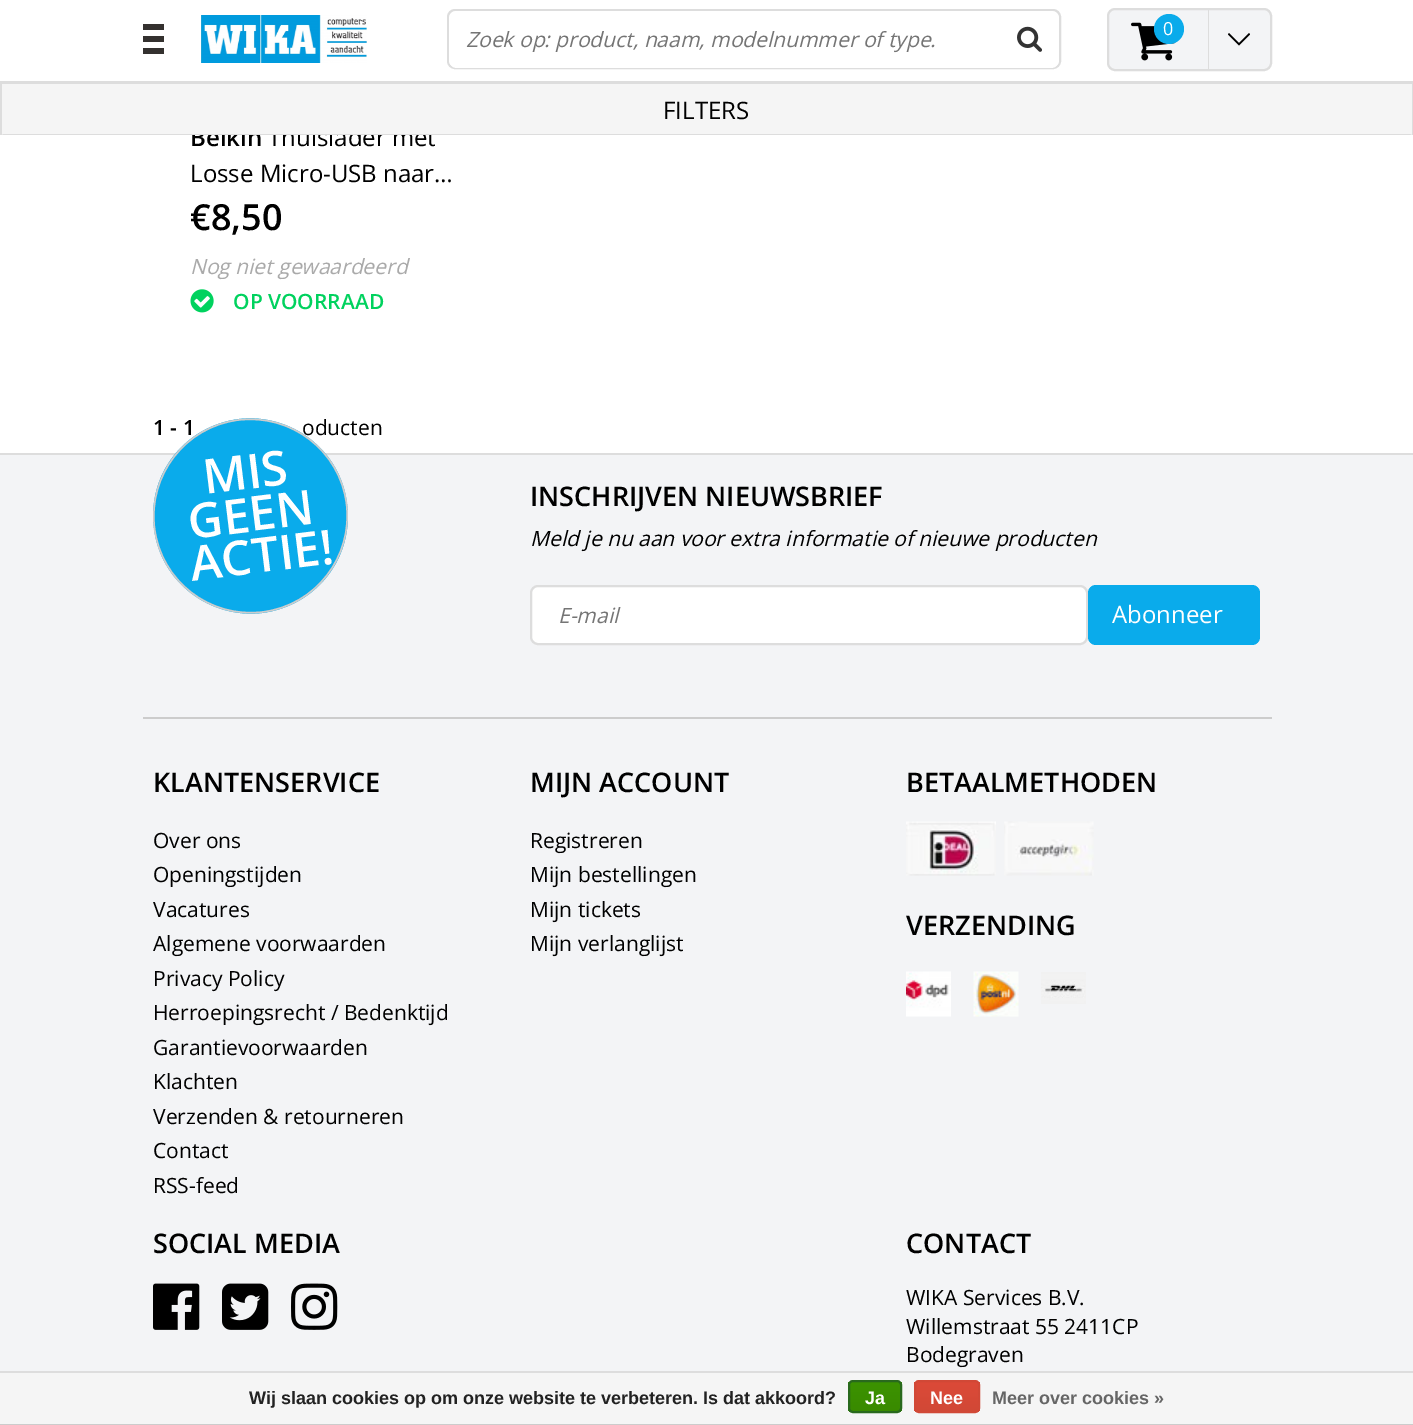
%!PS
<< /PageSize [1413 1425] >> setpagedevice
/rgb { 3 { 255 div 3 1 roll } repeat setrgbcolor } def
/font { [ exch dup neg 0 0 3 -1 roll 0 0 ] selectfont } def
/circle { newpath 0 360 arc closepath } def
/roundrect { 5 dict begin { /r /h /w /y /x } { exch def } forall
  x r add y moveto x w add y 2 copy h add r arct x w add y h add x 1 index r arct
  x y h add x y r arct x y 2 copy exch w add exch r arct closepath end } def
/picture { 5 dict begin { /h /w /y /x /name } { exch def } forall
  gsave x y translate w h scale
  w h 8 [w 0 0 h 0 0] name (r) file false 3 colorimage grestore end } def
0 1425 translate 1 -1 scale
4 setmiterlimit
255 255 255 rgb
0 0 1413 1425 rectfill
[
  [143 24 21 6 52 49 47]
  [143 36 21 6 52 49 47]
  [143 48 21 6 52 49 47]
] { aload pop rgb rectfill } forall
(img/1.rgb) 201 15 166 48 picture
243 244 246 rgb
1108 9 163 61 7 roundrect gsave fill grestore
221 221 221 rgb
2 setlinewidth
stroke
(img/2.rgb) 1131 22 45 39 picture
10 171 235 rgb
1169 29 15 circle fill
221 221 221 rgb
1208 70 moveto 1208 9 lineto 1209 9 lineto 1209 69 lineto closepath fill
0 0 0 rgb
1237.5 44 moveto 1239 45.5 lineto 1250 34.5 lineto 1249 33 lineto 1239 43 lineto 1229 33 lineto 1228 34.5 lineto closepath fill
221 221 221 rgb
448 10 612 58 7 roundrect stroke
255 255 255 rgb
449 11 610 57 8 roundrect fill
(img/3.rgb) 1017 26 25 26 picture
[
  [0 81 1413 3 221 221 221]
  [1412 83 1 52 221 221 221]
  [0 83 2 52 221 221 221]
] { aload pop rgb rectfill } forall
(img/4.rgb) 190 289 24 24 picture
243 244 246 rgb
0 455 1413 916 rectfill
221 221 221 rgb
0 453 1413 2 rectfill
255 255 255 rgb
531 586 556 58 7 roundrect gsave fill grestore
221 221 221 rgb
stroke
10 171 235 rgb
1088 585 172 60 8 roundrect fill
204 204 204 rgb
143 717 1129 2 rectfill
(img/5.rgb) 906 821 90 55 picture
(img/6.rgb) 1004 821 90 55 picture
(img/7.rgb) 906 971 45 46 picture
(img/8.rgb) 973 971 46 46 picture
(img/9.rgb) 1041 972 45 32 picture
(img/10.rgb) 153 1283 47 47 picture
(img/11.rgb) 222 1283 47 47 picture
(img/12.rgb) 291 1283 47 47 picture
[
  [0 1373 1413 51 245 245 245]
  [0 1371 1413 2 221 221 221]
  [0 1424 1413 1 204 204 204]
] { aload pop rgb rectfill } forall
gsave
848 1380 54 33 5 roundrect clip newpath
gsave 848 1382 moveto 902 1382 lineto 902 1412 lineto 848 1412 lineto closepath clip newpath
<< /ShadingType 2 /ColorSpace /DeviceRGB /Coords [875 1382 875 1412] /Extend [true true] /Function << /FunctionType 2 /Domain [0 1] /C0 [0.235 0.576 0] /C1 [0.224 0.541 0] /N 1 >> >> shfill grestore
grestore
41 105 29 rgb
849 1381 52 31 4 roundrect stroke
gsave
914 1380 66 33 5 roundrect clip newpath
gsave 914 1382 moveto 980 1382 lineto 980 1412 lineto 914 1412 lineto closepath clip newpath
<< /ShadingType 2 /ColorSpace /DeviceRGB /Coords [947 1382 947 1412] /Extend [true true] /Function << /FunctionType 2 /Domain [0 1] /C0 [0.863 0.29 0.22] /C1 [0.82 0.282 0.212] /N 1 >> >> shfill grestore
grestore
209 72 54 rgb
915 1381 64 31 4 roundrect stroke
/OpenSans-Regular 18 font
255 255 255 rgb
1163 35 moveto (0) show
/OpenSans-Italic 21 font
117 117 117 rgb
466 47 moveto (Zoek op: product, naam, modelnummer of type.) show
/OpenSans-SemiBold 24 font
0 0 0 rgb
190 146 moveto (Belkin) show
/OpenSans-Regular 24 font
268 146 moveto (Thuislader met) show
245 245 245 rgb
2 84 1410 51 rectfill
0 0 0 rgb
663 119 moveto (FILTERS) show
221 221 221 rgb
1412 135 moveto 2 135 lineto 3 134 lineto 1410 134 lineto closepath fill
0 0 0 rgb
190 182 moveto (Losse Micro-USB naar…) show
gsave
191 192 295 50 rectclip
/OpenSans-SemiBold 36 font
190 230 moveto (€8,50) show
grestore
/OpenSans-Italic 21 font
170 170 170 rgb
190 274 moveto (Nog niet gewaardeerd) show
/OpenSans-SemiBold 21 font
0 210 94 rgb
233 309 moveto (OP VOORRAAD) show
0 0 0 rgb
153 435 moveto (1 - 1) show
/OpenSans-Regular 21 font
302 435 moveto (oducten) show
10 171 235 rgb
239 419 moveto 292 413 341 451 347 504 curveto 354 558 316 606 262 613 curveto 209 619 160 581 154 528 curveto 147 474 185 426 239 419 curveto closepath fill
204 204 204 rgb
1.5 setlinewidth
238.5 420 moveto 291.5 413.5 340 451 346.5 504 curveto 353 557 315.5 605.5 262.5 612 curveto 209.5 618.5 161 581 154.5 528 curveto 148 475 185.5 426.5 238.5 420 curveto closepath stroke
/OpenSans-SemiBold 48 font
255 255 255 rgb
gsave 205 494 translate -7 rotate 0 0 moveto (MIS) show grestore
gsave 190 539 translate -7 rotate 0 0 moveto (GEEN) show grestore
gsave 192 581 translate -7 rotate 0 0 moveto (ACTIE!) show grestore
/OpenSans-SemiBold 27 font
0 0 0 rgb
530 506 moveto (INSCHRIJVEN NIEUWSBRIEF) show
/OpenSans-Italic 21 font
530 546 moveto (Meld je nu aan voor extra informatie of nieuwe producten) show
117 117 117 rgb
558 623 moveto (E-mail) show
/OpenSans-Regular 24 font
255 255 255 rgb
1112 623 moveto (Abonneer) show
/OpenSans-SemiBold 27 font
0 0 0 rgb
153 792 moveto (KLANTENSERVICE) show
/OpenSans-Regular 21 font
[
  [(Over ons) 153 848]
  [(Openingstijden) 153 882]
  [(Vacatures) 153 917]
  [(Algemene voorwaarden) 153 951]
  [(Privacy Policy) 153 986]
  [(Herroepingsrecht / Bedenktijd) 153 1020]
  [(Garantievoorwaarden) 153 1055]
  [(Klachten) 153 1089]
  [(Verzenden & retourneren) 153 1124]
  [(Contact) 153 1158]
  [(RSS-feed) 153 1193]
] { aload pop moveto show } forall
/OpenSans-SemiBold 27 font
530 792 moveto (MIJN ACCOUNT) show
/OpenSans-Regular 21 font
[
  [(Registreren) 530 848]
  [(Mijn bestellingen) 530 882]
  [(Mijn tickets) 530 917]
  [(Mijn verlanglijst) 530 951]
] { aload pop moveto show } forall
/OpenSans-SemiBold 27 font
[
  [(BETAALMETHODEN) 906 792]
  [(VERZENDING) 906 935]
  [(SOCIAL MEDIA) 153 1253]
  [(CONTACT) 906 1253]
] { aload pop moveto show } forall
/OpenSans-Regular 21 font
[
  [(WIKA Services B.V.) 906 1305]
  [(Willemstraat 55 2411CP) 906 1334]
  [(Bodegraven) 906 1362]
] { aload pop moveto show } forall
/LiberationSans-Bold 18 font
34 34 34 rgb
249 1404 moveto (Wij slaan cookies op om onze website te verbeteren. Is dat akkoord?) show
255 255 255 rgb
865 1404 moveto (Ja) show
930 1404 moveto (Nee) show
102 102 102 rgb
992 1404 moveto (Meer over cookies ») show
showpage
